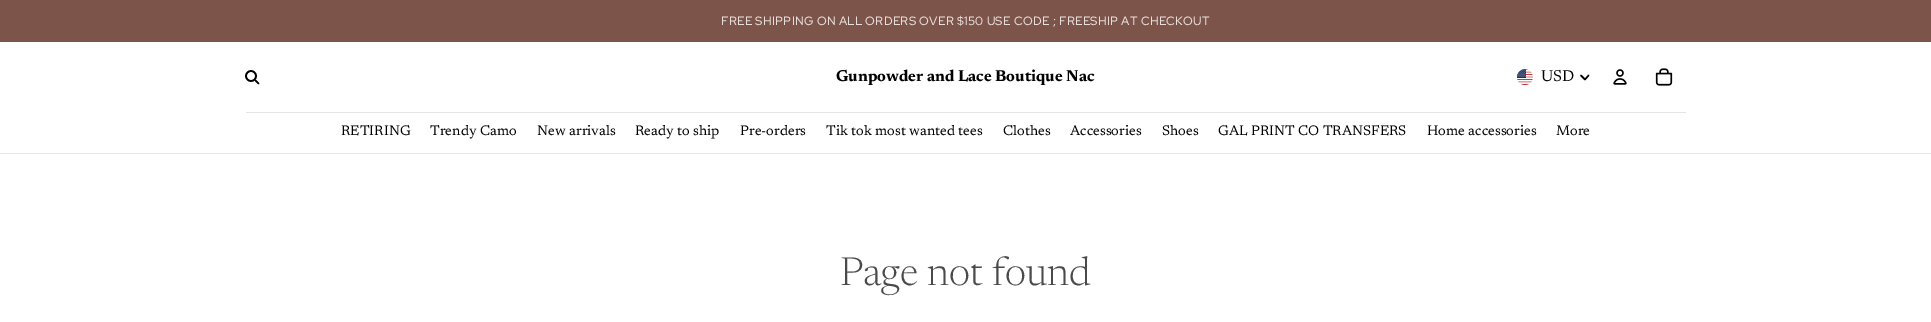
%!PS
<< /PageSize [1931 322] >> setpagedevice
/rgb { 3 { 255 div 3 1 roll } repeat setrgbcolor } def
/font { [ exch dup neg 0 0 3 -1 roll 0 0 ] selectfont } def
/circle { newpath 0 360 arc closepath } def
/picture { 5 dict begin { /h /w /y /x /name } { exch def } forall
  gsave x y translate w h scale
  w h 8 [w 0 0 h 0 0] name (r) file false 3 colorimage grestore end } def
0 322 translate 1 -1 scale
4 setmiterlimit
255 255 255 rgb
0 0 1931 322 rectfill
125 84 73 rgb
0 0 1931 42 rectfill
230 230 230 rgb
246 112 1440 1 rectfill
0 0 0 rgb
1.7 setlinewidth
251 76 5 circle stroke
1 setlinecap
1 setlinejoin
255 80 moveto 258.5 83.5 lineto stroke
(img/1.rgb) 1517 69 16 16 picture
1.5 setlinewidth
1588.5 75.5 moveto 1585 79.5 lineto 1581 75.5 lineto stroke
(img/2.rgb) 1613 69 14 16 picture
(img/3.rgb) 1655 68 18 18 picture
230 230 230 rgb
0 153 1931 1 rectfill
/RedHatDisplay-Medium 12 font
230 223 220 rgb
721 25 moveto 0.35 0 (FREE SHIPPING ON ALL ORDERS OVER $150 USE CODE ; FREESHIP AT CHECKOUT) ashow
/Newsreader-Bold 16 font
0 0 0 rgb
836 81 moveto (Gunpowder and Lace Boutique Nac) show
/Newsreader-Regular 16 font
1541 81 moveto (USD) show
/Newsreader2-Regular 14 font
[
  [(RETIRING) 341 135]
  [(Trendy Camo) 430 135]
  [(New arrivals) 537 135]
  [(Ready to ship) 635 135]
  [(Pre-orders) 740 135]
  [(Tik tok most wanted tees) 826 135]
  [(Clothes) 1003 135]
  [(Accessories) 1070 135]
  [(Shoes) 1162 135]
  [(GAL PRINT CO TRANSFERS) 1218 135]
  [(Home accessories) 1427 135]
  [(More) 1556 135]
] { aload pop moveto show } forall
/Newsreader-Light 40 font
74 74 74 rgb
840 285 moveto (Page not found) show
showpage
